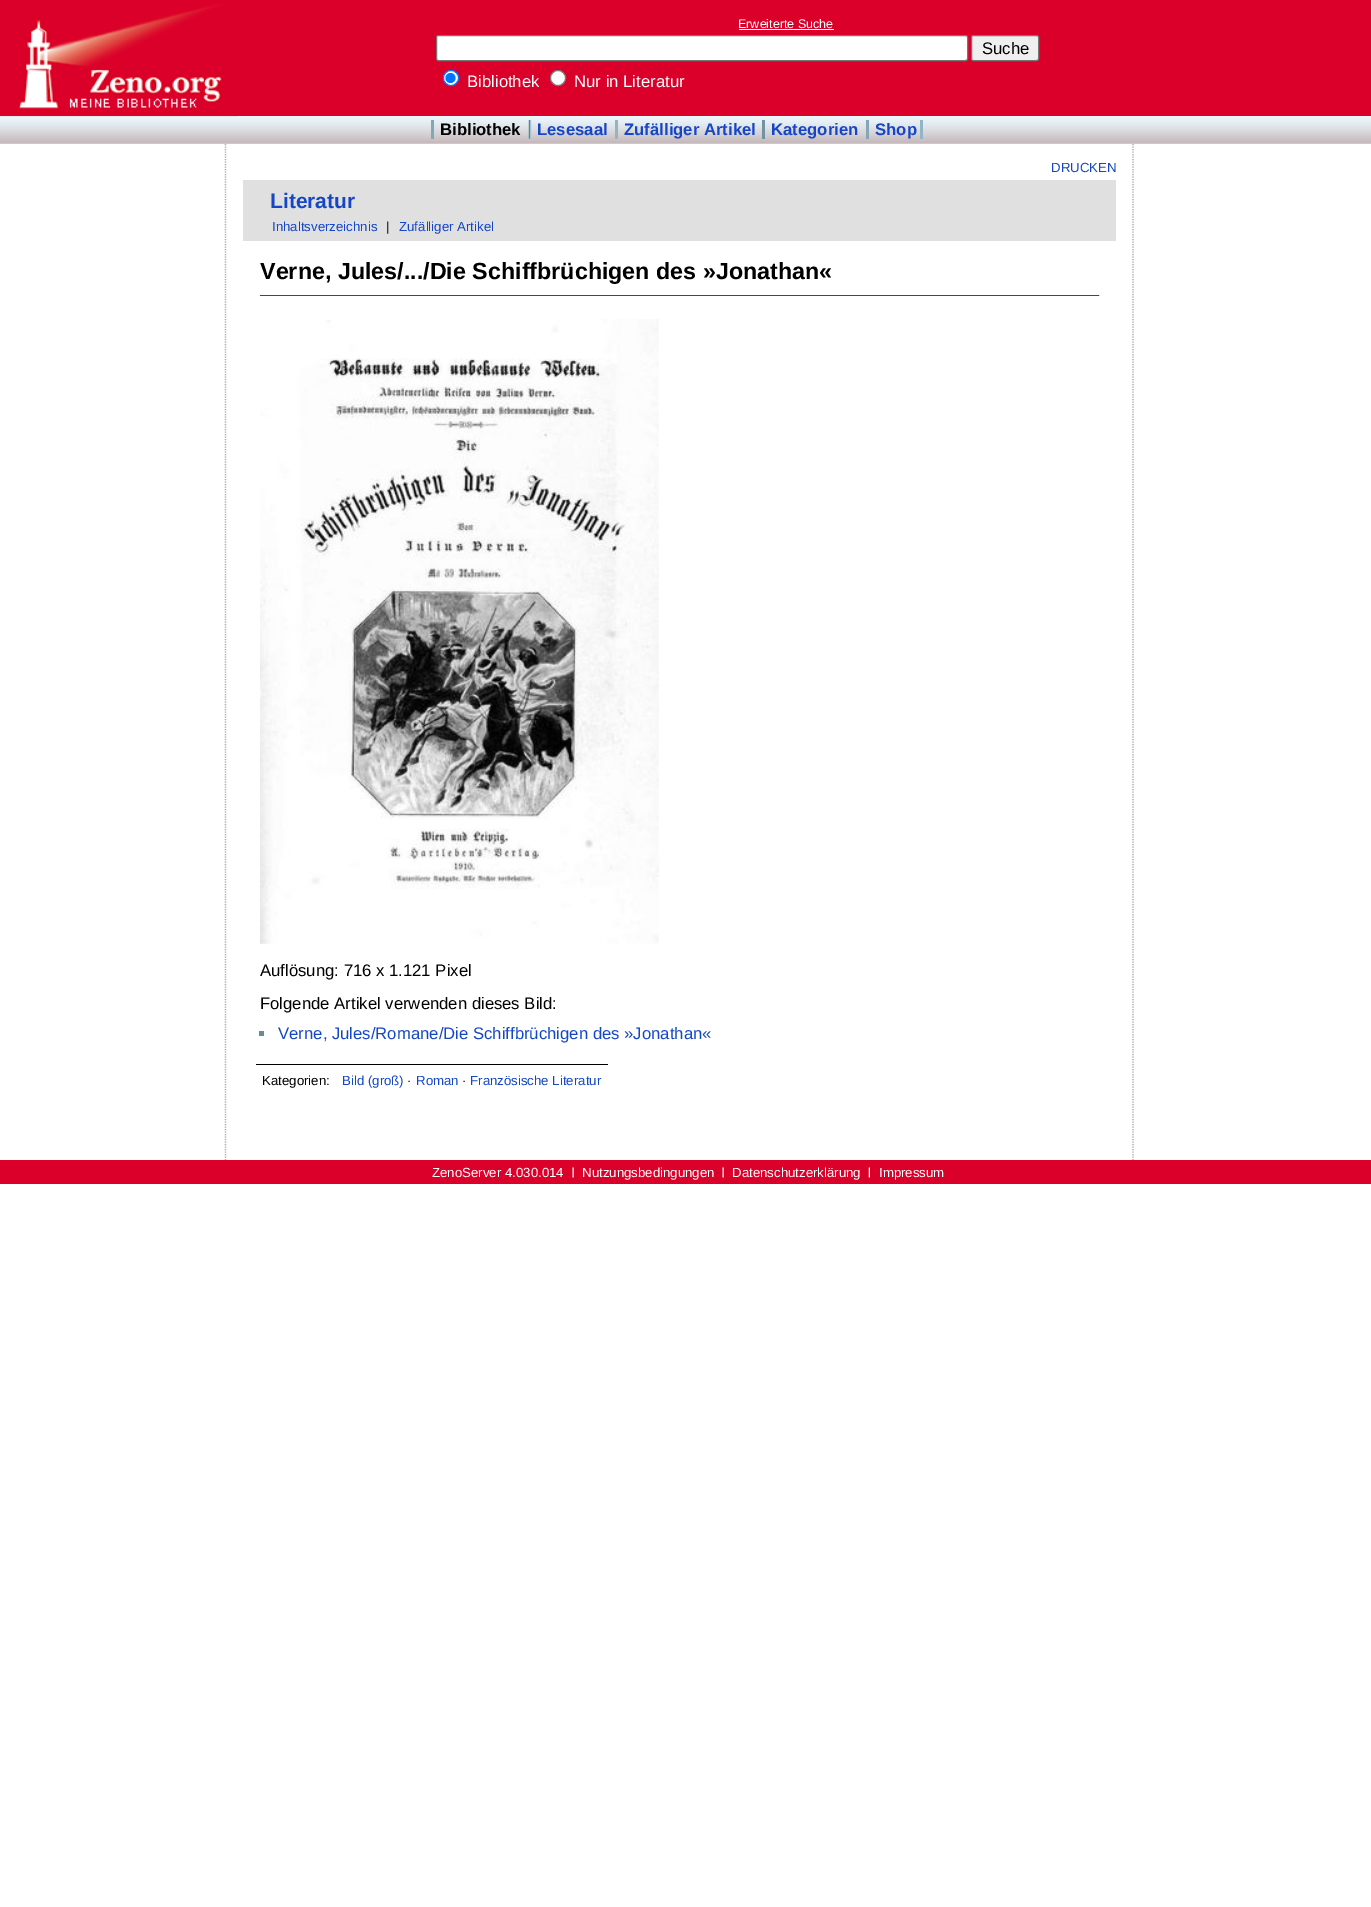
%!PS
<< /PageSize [1371 1907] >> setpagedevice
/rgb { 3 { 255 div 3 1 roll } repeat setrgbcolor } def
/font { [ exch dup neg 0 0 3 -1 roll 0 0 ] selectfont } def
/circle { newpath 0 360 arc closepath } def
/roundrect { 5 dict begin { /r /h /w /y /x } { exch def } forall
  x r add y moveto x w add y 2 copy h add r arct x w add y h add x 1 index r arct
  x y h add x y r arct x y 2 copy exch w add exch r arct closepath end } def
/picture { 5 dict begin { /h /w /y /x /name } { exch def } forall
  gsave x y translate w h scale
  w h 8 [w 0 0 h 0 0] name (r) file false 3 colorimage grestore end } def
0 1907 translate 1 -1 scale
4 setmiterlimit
255 255 255 rgb
0 0 1371 1907 rectfill
219 0 41 rgb
0 0 1371 116 rectfill
(img/2.rgb) 0 116 1371 28 picture
(img/1.rgb) 0 4 238 113 picture
255 255 255 rgb
739 29 95 1 rectfill
436.5 35.5 531 25 2 roundrect gsave fill grestore
118 118 118 rgb
stroke
239 239 239 rgb
971.5 35.5 67 25 2 roundrect gsave fill grestore
118 118 118 rgb
stroke
255 255 255 rgb
451 78 7.5 circle gsave fill grestore
0 117 255 rgb
stroke
450.5 78 5 circle fill
255 255 255 rgb
558 78 7.5 circle gsave fill grestore
118 118 118 rgb
stroke
132 167 182 rgb
431 120 3 19 rectfill
(img/3.rgb) 528 120 4 19 picture
[
  [615 120 3 19 146 181 196]
  [762 120 3 19 113 148 163]
  [920 120 3 19 146 181 196]
  [866 120 3 19 132 167 182]
] { aload pop rgb rectfill } forall
170 170 170 rgb
1.2 setlinewidth
[1.25 1.25] 0 setdash
1133 144 moveto 1133 1160 lineto stroke
225.5 144 moveto 225.5 1160 lineto stroke
224 224 224 rgb
243 180 873 61 rectfill
219 0 41 rgb
260 295 839 1 rectfill
(img/4.rgb) 260 319 399 625 picture
[
  [259 1031 5 5 99 140 156]
  [256 1064 352 1 0 0 0]
  [0 1160 1371 24 219 0 41]
] { aload pop rgb rectfill } forall
(img/5.rgb) 572 1167 2 11 picture
(img/5.rgb) 722 1167 2 11 picture
(img/6.rgb) 868 1167 2 11 picture
/LiberationSans-Regular 12.5 font
255 255 255 rgb
738 28 moveto (Erweiterte Suche) show
/LiberationSans-Regular 16.7 font
0 0 0 rgb
982 54 moveto (Suche) show
255 255 255 rgb
467 87 moveto (Bibliothek) show
574 87 moveto (Nur in Literatur) show
/LiberationSans-Bold 16.7 font
0 0 0 rgb
440 135 moveto (Bibliothek) show
20 70 198 rgb
[
  [(Lesesaal) 537 135]
  [(Zufälliger Artikel) 624 135]
  [(Kategorien) 771 135]
  [(Shop) 875 135]
] { aload pop moveto show } forall
/LiberationSans-Regular 13.25 font
1051 172 moveto (DRUCKEN) show
/LiberationSans-Bold 21 font
270 208 moveto (Literatur) show
/LiberationSans-Regular 13.25 font
272 231 moveto (Inhaltsverzeichnis) show
0 0 0 rgb
386 231 moveto (|) show
20 70 198 rgb
399 231 moveto (Zufälliger Artikel) show
/LiberationSans-Bold 23.3 font
0 0 0 rgb
260 279 moveto (Verne, Jules/.../Die Schiffbrüchigen des »Jonathan«) show
/LiberationSans-Regular 16.7 font
260 976 moveto (Auflösung: 716 x 1.121 Pixel) show
260 1009 moveto (Folgende Artikel verwenden dieses Bild:) show
20 70 198 rgb
278 1039 moveto (Verne, Jules/Romane/Die Schiffbrüchigen des »Jonathan«) show
/LiberationSans-Regular 13.25 font
0 0 0 rgb
262 1085 moveto (Kategorien:) show
20 70 198 rgb
342 1085 moveto (Bild \(groß\)) show
0 0 0 rgb
407 1085 moveto (·) show
20 70 198 rgb
416 1085 moveto (Roman) show
0 0 0 rgb
462 1085 moveto (·) show
20 70 198 rgb
470 1085 moveto (Französische Literatur) show
255 255 255 rgb
[
  [(ZenoServer 4.030.014) 432 1177]
  [(Nutzungsbedingungen) 582 1177]
  [(Datenschutzerklärung) 732 1177]
  [(Impressum) 879 1177]
] { aload pop moveto show } forall
showpage
